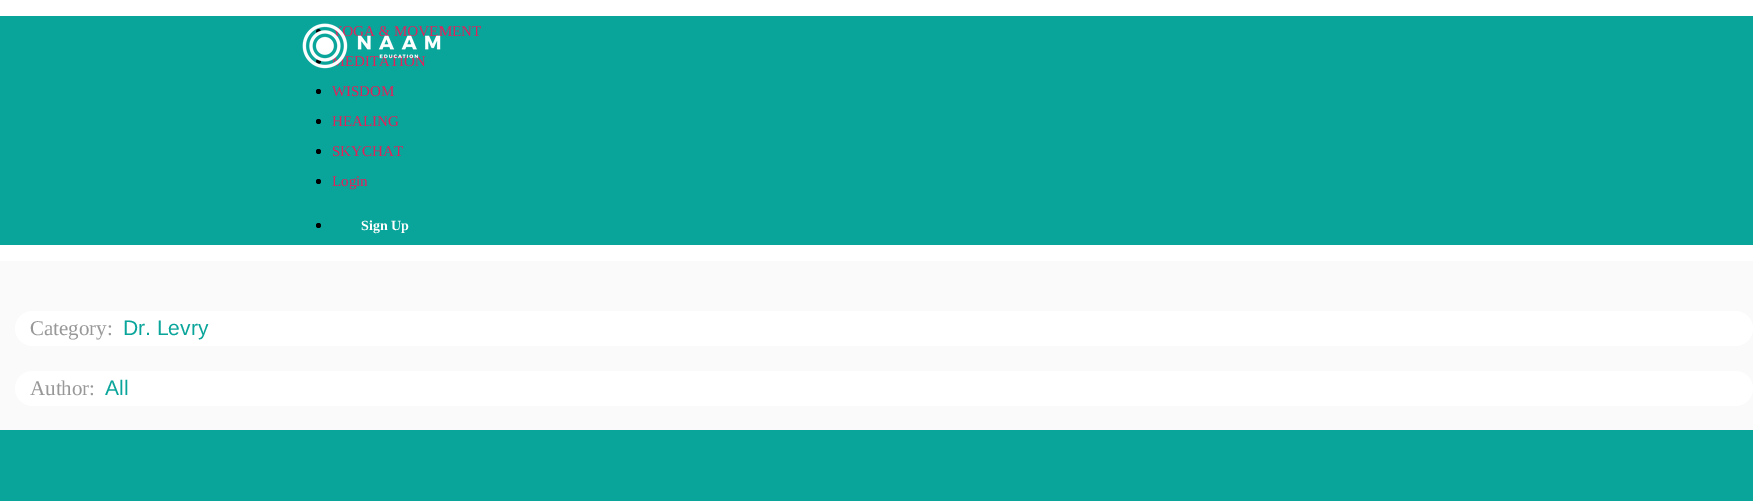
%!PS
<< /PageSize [1753 501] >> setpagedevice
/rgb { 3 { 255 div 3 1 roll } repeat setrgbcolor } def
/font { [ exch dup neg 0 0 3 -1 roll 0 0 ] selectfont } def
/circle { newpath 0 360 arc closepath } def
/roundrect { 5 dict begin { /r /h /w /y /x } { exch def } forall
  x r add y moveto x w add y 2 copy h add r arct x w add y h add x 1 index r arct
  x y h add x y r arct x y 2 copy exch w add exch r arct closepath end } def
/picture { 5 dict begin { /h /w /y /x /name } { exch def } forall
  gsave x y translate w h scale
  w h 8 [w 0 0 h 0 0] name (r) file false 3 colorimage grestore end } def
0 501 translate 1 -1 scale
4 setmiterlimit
255 255 255 rgb
0 0 1753 501 rectfill
9 165 154 rgb
0 16 1753 229 rectfill
0 0 0 rgb
318.5 31.5 2.5 circle fill
318.5 61.5 2.5 circle fill
318.5 91.5 2.5 circle fill
318.5 121.5 2.5 circle fill
318.5 151.5 2.5 circle fill
318.5 181.5 2.5 circle fill
318.5 225.5 2.5 circle fill
250 250 250 rgb
0 261 1753 169 rectfill
255 255 255 rgb
15 311 1738 35 17.5 roundrect fill
15 371 1738 35 17.5 roundrect fill
9 165 154 rgb
0 430 1753 71 rectfill
/LiberationSerif-Regular 15 font
230 31 91 rgb
332 36 moveto (YOGA & MOVEMENT) show
332 66 moveto (MEDITATION) show
(img/1.rgb) 302 23 139 46 picture
[
  [(WISDOM) 332 96]
  [(HEALING) 332 126]
  [(SKYCHAT) 332 156]
  [(Login) 332 186]
] { aload pop moveto show } forall
/LiberationSerif-Bold 14 font
255 255 255 rgb
361 230 moveto (Sign Up) show
/LiberationSerif-Regular 21 font
152 152 152 rgb
30 335 moveto (Category:) show
/LiberationSans-Regular 21 font
9 165 154 rgb
123 335 moveto (Dr. Levry) show
/LiberationSerif-Regular 21 font
152 152 152 rgb
30 395 moveto (Author:) show
/LiberationSans-Regular 21 font
9 165 154 rgb
105 395 moveto (All) show
showpage
